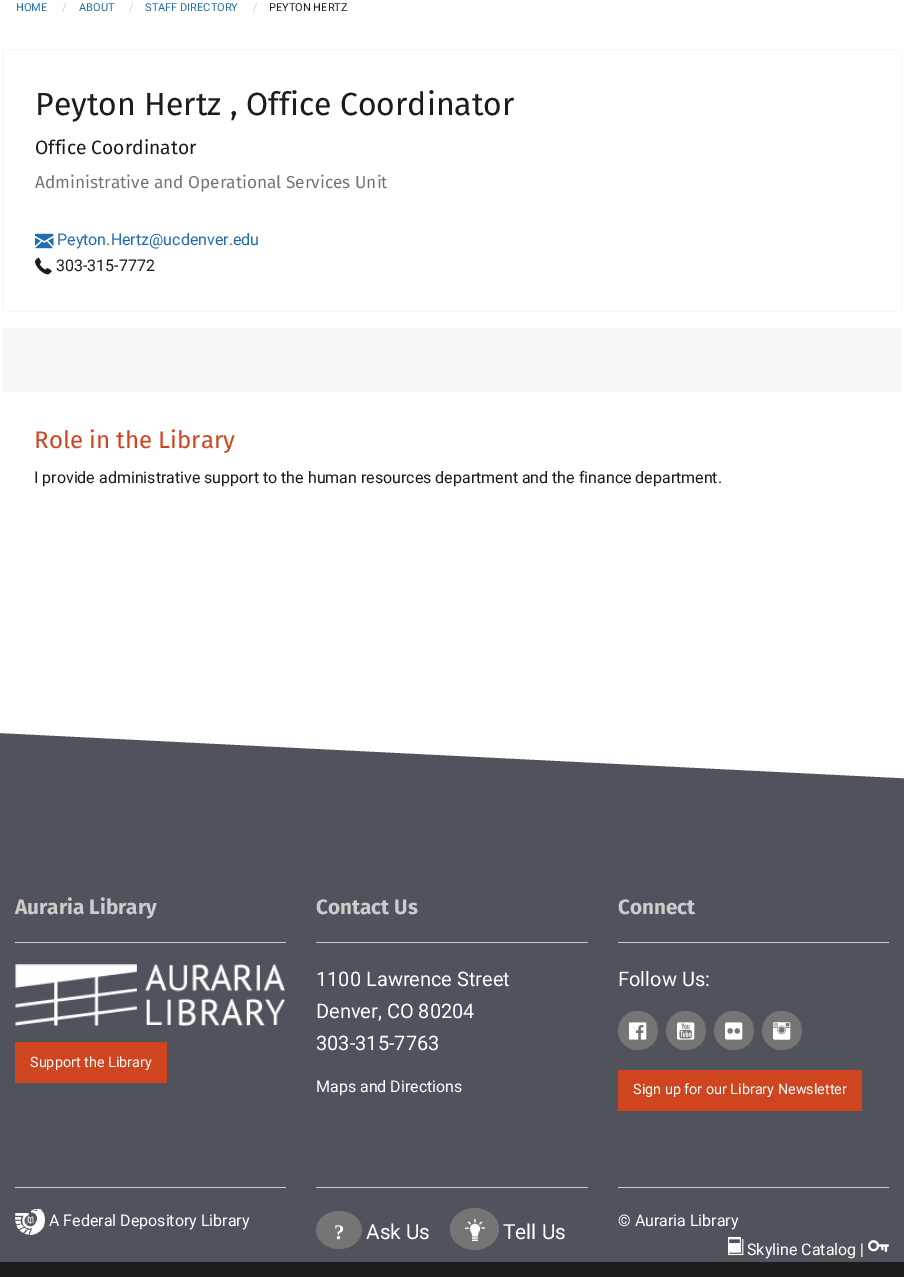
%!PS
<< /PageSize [904 1277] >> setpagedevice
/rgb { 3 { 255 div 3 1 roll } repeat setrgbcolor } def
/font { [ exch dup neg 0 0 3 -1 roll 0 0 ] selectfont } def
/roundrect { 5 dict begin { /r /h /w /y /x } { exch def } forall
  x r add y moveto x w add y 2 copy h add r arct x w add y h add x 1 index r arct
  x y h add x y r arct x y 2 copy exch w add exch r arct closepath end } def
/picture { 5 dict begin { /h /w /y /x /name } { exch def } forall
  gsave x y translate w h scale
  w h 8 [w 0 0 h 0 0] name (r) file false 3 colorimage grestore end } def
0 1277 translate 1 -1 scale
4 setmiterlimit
81 83 92 rgb
0 0 904 1277 rectfill
255 255 255 rgb
0 0 904 733 rectfill
248 248 248 rgb
2.5 49.5 899 262 rectstroke
(img/1.rgb) 35 233 19 16 picture
(img/2.rgb) 35 257 17 18 picture
2 328 900 64 rectfill
255 255 255 rgb
0 733 moveto 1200 733 lineto 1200 793 lineto closepath fill
204 204 204 rgb
15 942 271 1 rectfill
(img/3.rgb) 15 964 270 62 picture
207 69 32 rgb
15 1042 152 41 rectfill
204 204 204 rgb
15 1187 271 1 rectfill
(img/4.rgb) 15 1209 30 26 picture
316 942 272 1 rectfill
316 1187 272 1 rectfill
117 117 117 rgb
339 1211 moveto 351.5 1211 362 1219.5 362 1230 curveto 362 1240.5 351.5 1249 339 1249 curveto 326.5 1249 316 1240.5 316 1230 curveto 316 1219.5 326.5 1211 339 1211 curveto closepath fill
474.5 1208 moveto 488 1208 499 1217.5 499 1229 curveto 499 1240.5 488 1250 474.5 1250 curveto 461 1250 450 1240.5 450 1229 curveto 450 1217.5 461 1208 474.5 1208 curveto closepath fill
(img/5.rgb) 465 1219 20 23 picture
204 204 204 rgb
618 942 271 1 rectfill
117 117 117 rgb
618 1011 40 39 19.5 roundrect fill
(img/6.rgb) 629 1022 18 18 picture
666 1011 40 39 19.5 roundrect fill
(img/7.rgb) 677 1022 18 18 picture
714 1011 40 39 19.5 roundrect fill
(img/8.rgb) 725 1022 18 18 picture
762 1011 40 39 19.5 roundrect fill
(img/9.rgb) 773 1022 18 18 picture
207 69 32 rgb
618 1070 244 41 rectfill
204 204 204 rgb
618 1187 271 1 rectfill
(img/10.rgb) 728 1236 16 20 picture
(img/11.rgb) 868 1240 21 12 picture
28 28 28 rgb
0 1262 904 15 rectfill
/Roboto-Regular 11 font
34 108 177 rgb
16 11 moveto (HOME) show
204 204 204 rgb
62 11 moveto (/) show
34 108 177 rgb
79 11 moveto (ABOUT) show
204 204 204 rgb
129 11 moveto (/) show
34 108 177 rgb
145 11 moveto (STAFF DIRECTORY) show
204 204 204 rgb
253 11 moveto (/) show
28 28 28 rgb
269 11 moveto (PEYTON HERTZ) show
/FiraSans-Regular 32 font
35 115 moveto (Peyton Hertz , Office Coordinator) show
/FiraSans-Regular 19.25 font
35 154 moveto (Office Coordinator) show
/FiraSans-Regular 17.25 font
117 117 117 rgb
35 188 moveto (Administrative and Operational Services Unit) show
/Roboto-Regular 16 font
34 108 177 rgb
57 245 moveto (Peyton.Hertz@ucdenver.edu) show
28 28 28 rgb
56 271 moveto (303-315-7772) show
/FiraSans-Regular 24 font
207 69 32 rgb
34 448 moveto (Role in the Library) show
/Roboto-Regular 16 font
28 28 28 rgb
34 483 moveto (I provide administrative support to the human resources department and the finance department.) show
/FiraSans-Bold 20.75 font
204 204 204 rgb
15 914 moveto (Auraria Library) show
/Roboto-Regular 14.4 font
255 255 255 rgb
30 1067 moveto (Support the Library) show
/Roboto-Regular 16 font
49 1226 moveto (A Federal Depository Library) show
/FiraSans-Bold 20.75 font
204 204 204 rgb
316 914 moveto (Contact Us) show
/Roboto-Regular 20 font
255 255 255 rgb
[
  [(1100 Lawrence Street) 316 986]
  [(Denver, CO 80204) 316 1018]
  [(303-315-7763) 316 1050]
] { aload pop moveto show } forall
/Roboto-Regular 16 font
316 1092 moveto (Maps and Directions) show
/LiberationSerif-Bold 20.75 font
334 1239 moveto (?) show
/Roboto-Regular 20.75 font
366 1239 moveto (Ask Us) show
503 1239 moveto (Tell Us) show
/FiraSans-Bold 20.75 font
204 204 204 rgb
618 914 moveto (Connect) show
/Roboto-Regular 20 font
255 255 255 rgb
618 986 moveto (Follow Us:) show
/Roboto-Regular 14.4 font
633 1094 moveto (Sign up for our Library Newsletter) show
/Roboto-Regular 16 font
618 1226 moveto (© Auraria Library) show
747 1255 moveto (Skyline Catalog |) show
showpage
